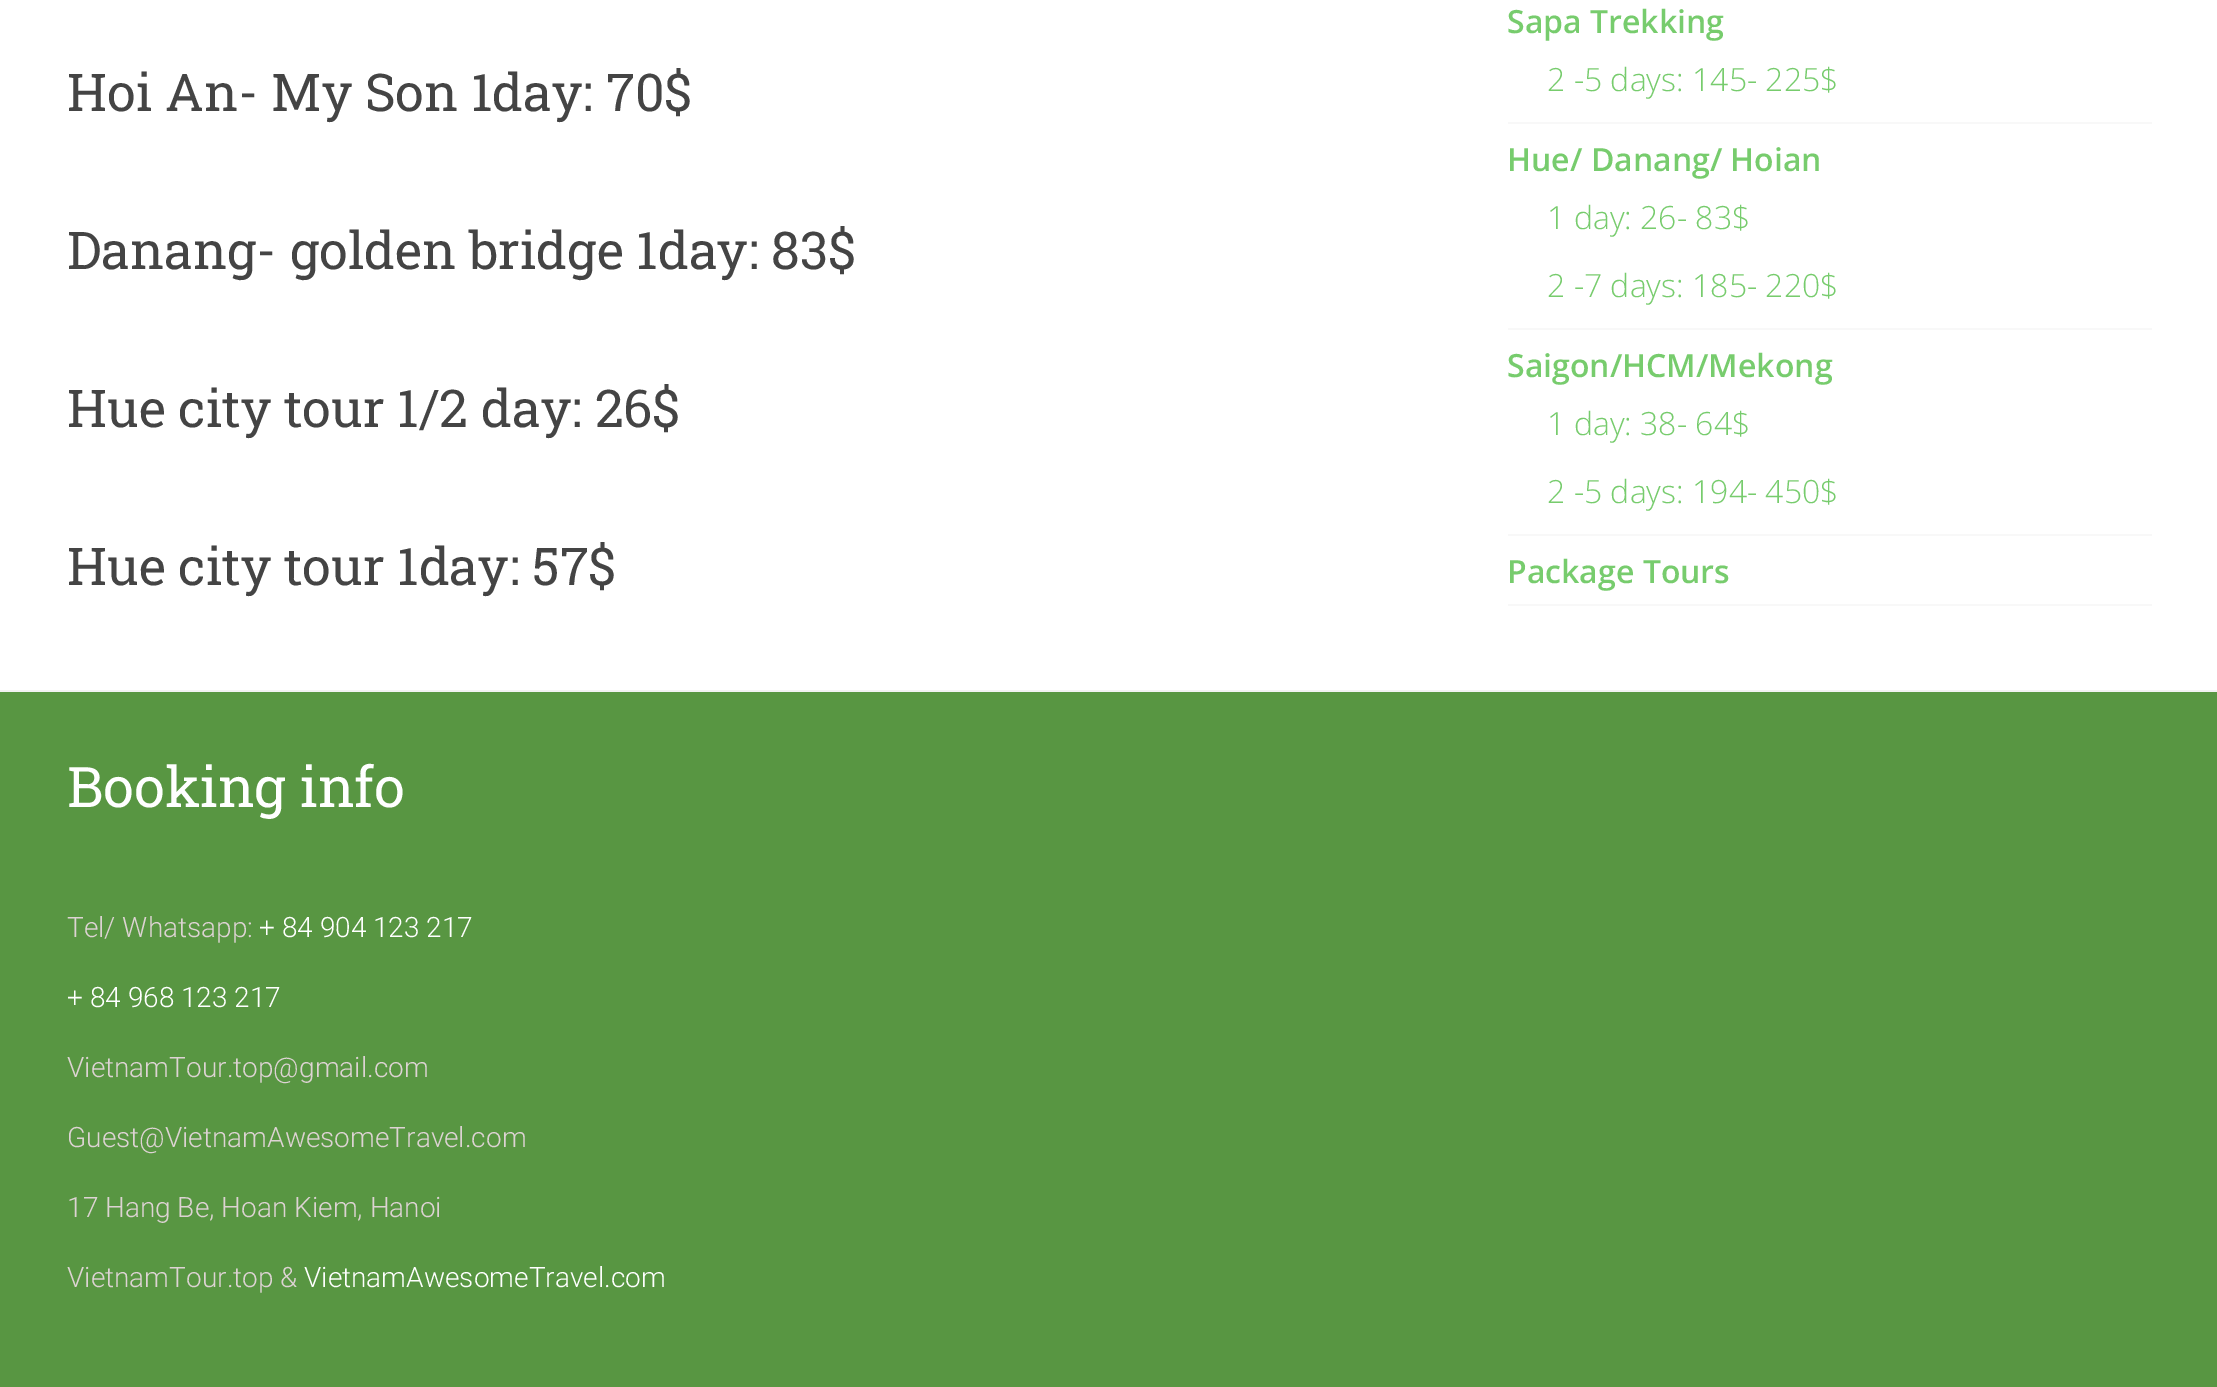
%!PS
<< /PageSize [2217 1387] >> setpagedevice
/rgb { 3 { 255 div 3 1 roll } repeat setrgbcolor } def
/font { [ exch dup neg 0 0 3 -1 roll 0 0 ] selectfont } def
0 1387 translate 1 -1 scale
4 setmiterlimit
255 255 255 rgb
0 0 2217 1387 rectfill
[
  [1508 122 644 2 248 248 248]
  [1508 328 644 2 248 248 248]
  [1508 534 644 2 248 248 248]
  [1508 604 644 2 248 248 248]
  [0 692 2217 695 88 150 66]
  [0 690 2217 2 242 242 242]
] { aload pop rgb rectfill } forall
/RobotoSlab-Regular 52 font
68 68 68 rgb
[
  [(Hoi An- My Son 1day: 70$) 67 111]
  [(Danang- golden bridge 1day: 83$) 67 269]
  [(Hue city tour 1/2 day: 26$) 67 427]
  [(Hue city tour 1day: 57$) 67 585]
] { aload pop moveto show } forall
/OpenSans-SemiBold 32 font
119 204 109 rgb
1507 33 moveto (Sapa Trekking) show
/OpenSans-Light 32 font
1547 91 moveto (2 -5 days: 145- 225$) show
/OpenSans-SemiBold 32 font
1507 171 moveto (Hue/ Danang/ Hoian) show
/OpenSans-Light 32 font
1547 229 moveto (1 day: 26- 83$) show
1547 297 moveto (2 -7 days: 185- 220$) show
/OpenSans-SemiBold 32 font
1507 377 moveto (Saigon/HCM/Mekong) show
/OpenSans-Light 32 font
1547 435 moveto (1 day: 38- 64$) show
1547 503 moveto (2 -5 days: 194- 450$) show
/OpenSans-SemiBold 32 font
1507 583 moveto (Package Tours) show
/RobotoSlab-Regular 56 font
255 255 255 rgb
67 807 moveto (Booking info) show
/Roboto-Light 28 font
221 211 211 rgb
67 937 moveto (Tel/ Whatsapp:) show
255 255 255 rgb
259 937 moveto (+ 84 904 123 217) show
67 1007 moveto (+ 84 968 123 217) show
221 211 211 rgb
[
  [(VietnamTour.top@gmail.com) 67 1077]
  [(Guest@VietnamAwesomeTravel.com) 67 1147]
  [(17 Hang Be, Hoan Kiem, Hanoi) 67 1217]
  [(VietnamTour.top &) 67 1287]
] { aload pop moveto show } forall
255 255 255 rgb
304 1287 moveto (VietnamAwesomeTravel.com) show
showpage
